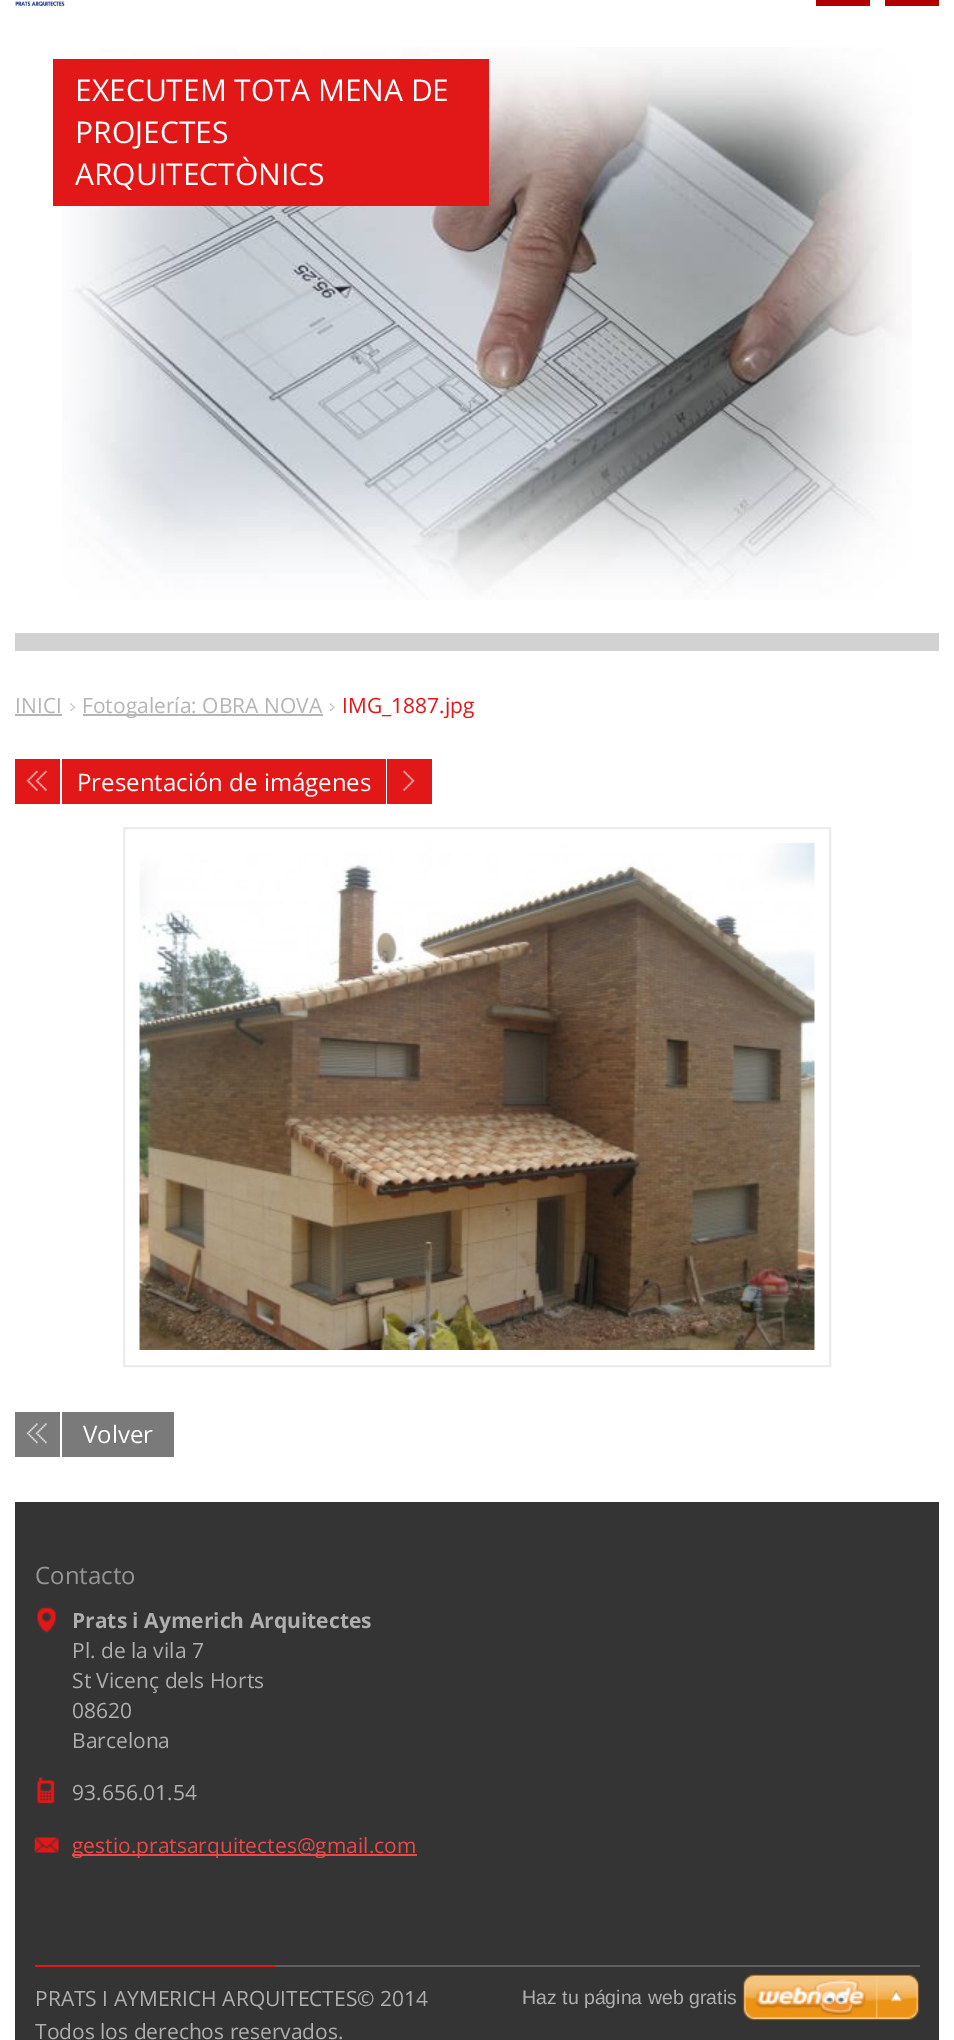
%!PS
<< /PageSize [954 2040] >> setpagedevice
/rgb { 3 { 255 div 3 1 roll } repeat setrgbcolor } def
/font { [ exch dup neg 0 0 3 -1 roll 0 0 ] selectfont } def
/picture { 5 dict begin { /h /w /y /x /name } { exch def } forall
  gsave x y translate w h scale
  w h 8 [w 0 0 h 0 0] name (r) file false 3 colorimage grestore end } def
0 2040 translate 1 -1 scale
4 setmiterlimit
255 255 255 rgb
0 0 954 2040 rectfill
(img/1.rgb) 15 1 50 5 picture
[
  [816 0 54 6 178 0 0]
  [885 0 54 6 178 0 0]
  [15 633 924 18 210 210 210]
] { aload pop rgb rectfill } forall
(img/2.rgb) 62 47 850 553 picture
226 24 24 rgb
53 59 436 147 rectfill
181 181 181 rgb
15 714 47 2 rectfill
(img/3.rgb) 70 703 5 8 picture
83 714 240 2 rectfill
(img/4.rgb) 330 703 5 8 picture
226 24 24 rgb
15 759 45 45 rectfill
(img/5.rgb) 26 770 21 21 picture
62 759 324 45 rectfill
387 759 45 45 rectfill
(img/6.rgb) 403 770 12 21 picture
236 236 236 rgb
2 setlinewidth
124 828 706 538 rectstroke
(img/7.rgb) 139 843 676 507 picture
122 122 122 rgb
15 1412 159 45 rectfill
(img/8.rgb) 26 1423 21 21 picture
255 255 255 rgb
60 1412 2 45 rectfill
52 52 52 rgb
15 1502 924 538 rectfill
(img/9.rgb) 37 1607 19 26 picture
(img/10.rgb) 37 1777 18 27 picture
(img/11.rgb) 34 1837 25 16 picture
[
  [72 1854 345 2 233 73 73]
  [275 1965 645 2 95 95 95]
  [35 1965 240 2 226 24 24]
] { aload pop rgb rectfill } forall
(img/12.rgb) 742 1974 178 47 picture
/OpenSans-Regular 30 font
255 255 255 rgb
[
  [(EXECUTEM TOTA MENA DE) 75 101]
  [(PROJECTES) 75 143]
  [(ARQUITECTÒNICS) 75 185]
] { aload pop moveto show } forall
/OpenSans-Regular 21 font
181 181 181 rgb
15 713 moveto (INICI) show
82 713 moveto (Fotogalería: OBRA NOVA) show
226 24 24 rgb
342 713 moveto (IMG_1887.jpg) show
/OpenSans-Regular 24 font
255 255 255 rgb
77 791 moveto (Presentación de imágenes) show
83 1443 moveto (Volver) show
149 149 149 rgb
35 1584 moveto (Contacto) show
/OpenSans-Bold 21 font
176 175 175 rgb
72 1628 moveto (Prats i Aymerich Arquitectes) show
/OpenSans-Regular 21 font
[
  [(Pl. de la vila 7) 72 1658]
  [(St Vicenç dels Horts) 72 1688]
  [(08620) 72 1718]
  [(Barcelona) 72 1748]
  [(93.656.01.54) 72 1800]
] { aload pop moveto show } forall
233 73 73 rgb
72 1853 moveto (gestio.pratsarquitectes@gmail.com) show
176 175 175 rgb
35 2006 moveto (PRATS I AYMERICH ARQUITECTES© 2014) show
35 2039 moveto (Todos los derechos reservados.) show
/LiberationSans-Regular 19.5 font
522 2004 moveto (Haz tu página web gratis) show
showpage
